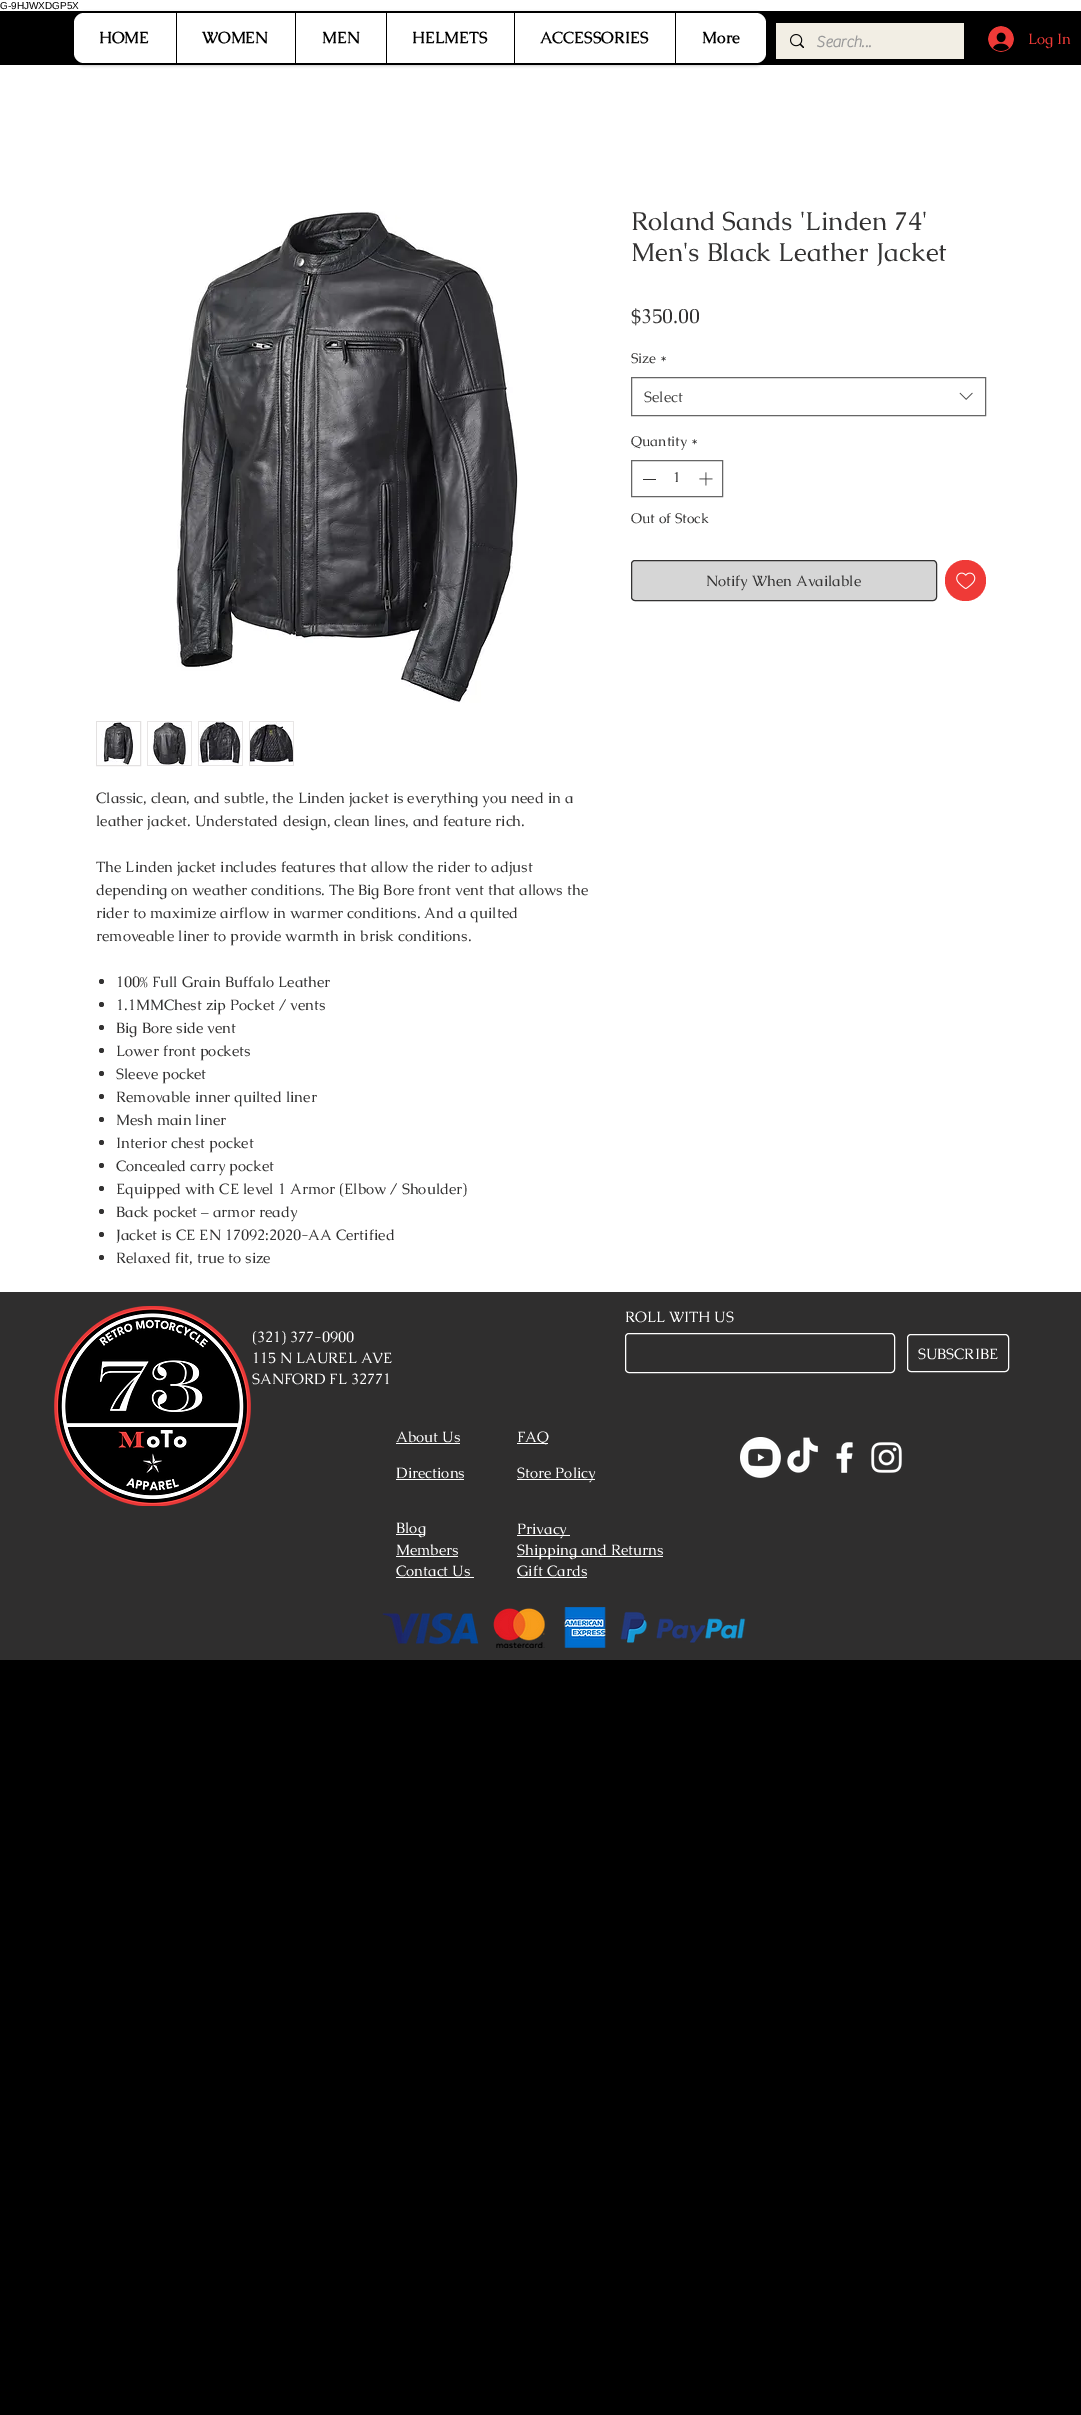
%!PS
<< /PageSize [1081 2415] /PageUsesTransparency true >> setpagedevice
/rgb { 3 { 255 div 3 1 roll } repeat setrgbcolor } def
/font { [ exch dup neg 0 0 3 -1 roll 0 0 ] selectfont } def
/alpha { dup .setfillconstantalpha .setstrokeconstantalpha } def
/circle { newpath 0 360 arc closepath } def
/roundrect { 5 dict begin { /r /h /w /y /x } { exch def } forall
  x r add y moveto x w add y 2 copy h add r arct x w add y h add x 1 index r arct
  x y h add x y r arct x y 2 copy exch w add exch r arct closepath end } def
/shadow { 12 dict begin { /a /b /q /h /w /y /x } { exch def } forall gsave /was 0 def
  9 -2 -9 { dup b mul 4 div /e exch def 1 sub .425 mul 2.718 exch exp 1 add a .99 .min exch div /now exch def
    1 1 now sub 1 was sub div sub alpha /was now def
    w h .min e 2 mul add 0 gt { x e sub y e sub w e 2 mul add h e 2 mul add
      q e add b .6 mul add w h .min 2 div e add .min 0 .max roundrect fill } if } for grestore end } def
/picture { 5 dict begin { /h /w /y /x /name } { exch def } forall
  gsave x y translate w h scale
  w h 8 [w 0 0 h 0 0] name (r) file false 3 colorimage grestore end } def
0 .pushpdf14devicefilter
0 2415 translate 1 -1 scale
4 setmiterlimit
255 255 255 rgb
0 0 1081 2415 rectfill
0 0 0 rgb
0 11 1081 2404 rectfill
255 255 255 rgb
0 65 1081 1227 rectfill
0 0 0 rgb
74 14 692 50 10 2 0.6 shadow
255 255 255 rgb
74 13 692 50 10 roundrect fill
[
  [176 13 1 50 0 0 0]
  [295 13 1 50 0 0 0]
  [386 13 1 50 0 0 0]
  [514 13 1 50 0 0 0]
  [675 13 1 50 0 0 0]
  [776 23 188 36 242 238 228]
] { aload pop rgb rectfill } forall
(img/1.rgb) 790 34 14 14 picture
(img/2.rgb) 988 26 26 26 picture
102 102 102 rgb
631.5 377.5 354 38 rectstroke
(img/3.rgb) 959 392 14 8 picture
631.5 460.5 91 36 rectstroke
51 50 50 rgb
643 479 13 1 rectfill
(img/4.rgb) 699 472 14 14 picture
214 214 214 rgb
631.5 560.5 305 40 3.5 roundrect gsave fill grestore
51 50 50 rgb
stroke
239 58 55 rgb
945 560 41 41 20 roundrect fill
(img/5.rgb) 956 572 20 17 picture
(img/6.rgb) 176 211 342 492 picture
227 225 225 rgb
96.5 721.5 44 44 rectstroke
(img/7.rgb) 97 722 43 43 picture
232 230 230 rgb
147 721 45 45 rectfill
(img/8.rgb) 148 722 43 43 picture
198 721 45 45 rectfill
(img/9.rgb) 199 722 43 43 picture
249 721 45 45 rectfill
(img/10.rgb) 250 722 43 43 picture
51 50 50 rgb
101.5 981.5 2.5 circle fill
101.5 1004.5 2.5 circle fill
101.5 1027.5 2.5 circle fill
101.5 1050.5 2.5 circle fill
101.5 1073.5 2.5 circle fill
101.5 1096.5 2.5 circle fill
101.5 1119.5 2.5 circle fill
101.5 1142.5 2.5 circle fill
101.5 1165.5 2.5 circle fill
101.5 1188.5 2.5 circle fill
101.5 1211.5 2.5 circle fill
101.5 1234.5 2.5 circle fill
101.5 1257.5 2.5 circle fill
47 46 46 rgb
0 1292 1081 368 rectfill
(img/11.rgb) 54 1306 197 200 picture
255 255 255 rgb
625.5 1333.5 269 39 3.5 roundrect stroke
907.5 1334.5 101 37 3.5 roundrect stroke
396 1443 64 1 rectfill
517 1443 31 1 rectfill
(img/12.rgb) 740 1437 41 41 picture
(img/13.rgb) 787 1437 31 36 picture
(img/14.rgb) 836 1442 17 31 picture
(img/15.rgb) 871 1442 31 31 picture
[
  [396 1479 68 1 255 255 255]
  [517 1479 78 1 255 255 255]
  [396 1534 29 1 255 255 255]
  [517 1535 53 1 255 255 255]
  [396 1556 62 1 255 255 255]
  [517 1556 146 1 255 255 255]
  [396 1577 78 1 255 255 255]
  [517 1577 70 1 255 255 255]
] { aload pop rgb rectfill } forall
(img/16.rgb) 382 1607 364 41 picture
/LiberationSans-Regular 10 font
0 0 0 rgb
0 9 moveto (G-9HJWXDGP5X) show
/Caudex-Bold 16 font
[
  [(HOME) 99 43]
  [(WOMEN) 202 43]
  [(MEN) 322 43]
  [(HELMETS) 412 43]
  [(ACCESSORIES) 540 43]
  [(More) 702 43]
] { aload pop moveto show } forall
/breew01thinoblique-Bold 16 font
153 153 153 rgb
816 47 moveto (Search...) show
/Caudex-Regular 15 font
239 58 55 rgb
1028 44 moveto (Log In) show
/Caudex-Regular 26 font
51 50 50 rgb
631 230 moveto (Roland Sands 'Linden 74') show
631 261 moveto (Men's Black Leather Jacket) show
/Caudex-Regular 20 font
631 323 moveto ($350.00) show
/Caudex-Regular 14 font
631 363 moveto (Size *) show
/Caudex-Regular 15 font
68 68 68 rgb
644 402 moveto (Select) show
/Caudex-Regular 14 font
51 50 50 rgb
[
  [(Quantity *) 631 446]
  [(1) 673 482]
  [(Out of Stock) 631 523]
] { aload pop moveto show } forall
/Caudex-Regular 15 font
[
  [(Notify When Available) 706 586]
  [(Classic, clean, and subtle, the Linden jacket is everything you need in a) 96 803]
  [(leather jacket. Understated design, clean lines, and feature rich.) 96 826]
  [(The Linden jacket includes features that allow the rider to adjust) 96 872]
  [(depending on weather conditions. The Big Bore front vent that allows the) 96 895]
  [(rider to maximize airflow in warmer conditions. And a quilted) 96 918]
  [(removeable liner to provide warmth in brisk conditions.) 96 941]
  [(100% Full Grain Buffalo Leather) 116 987]
  [(1.1MMChest zip Pocket / vents) 116 1010]
  [(Big Bore side vent) 116 1033]
  [(Lower front pockets) 116 1056]
  [(Sleeve pocket) 116 1079]
  [(Removable inner quilted liner) 116 1102]
  [(Mesh main liner) 116 1125]
  [(Interior chest pocket) 116 1148]
  [(Concealed carry pocket) 116 1171]
  [(Equipped with CE level 1 Armor \(Elbow / Shoulder\)) 116 1194]
  [(Back pocket – armor ready) 116 1217]
  [(Jacket is CE EN 17092:2020-AA Certified) 116 1240]
  [(Relaxed fit, true to size) 116 1263]
] { aload pop moveto show } forall
255 255 255 rgb
[
  [(\(321\) 377-0900) 252 1342]
  [(115 N LAUREL AVE) 252 1363]
  [(SANFORD FL 32771) 252 1384]
  [(ROLL WITH US) 625 1322]
  [(SUBSCRIBE) 918 1359]
  [(About Us) 396 1442]
  [(FAQ) 517 1442]
  [(Directions) 396 1478]
  [(Store Policy) 517 1478]
  [(Blog) 396 1533]
  [(Privacy) 517 1534]
  [(Members) 396 1555]
  [(Shipping and Returns) 517 1555]
  [(Contact Us) 396 1576]
  [(Gift Cards) 517 1576]
] { aload pop moveto show } forall
.poppdf14devicefilter showpage
